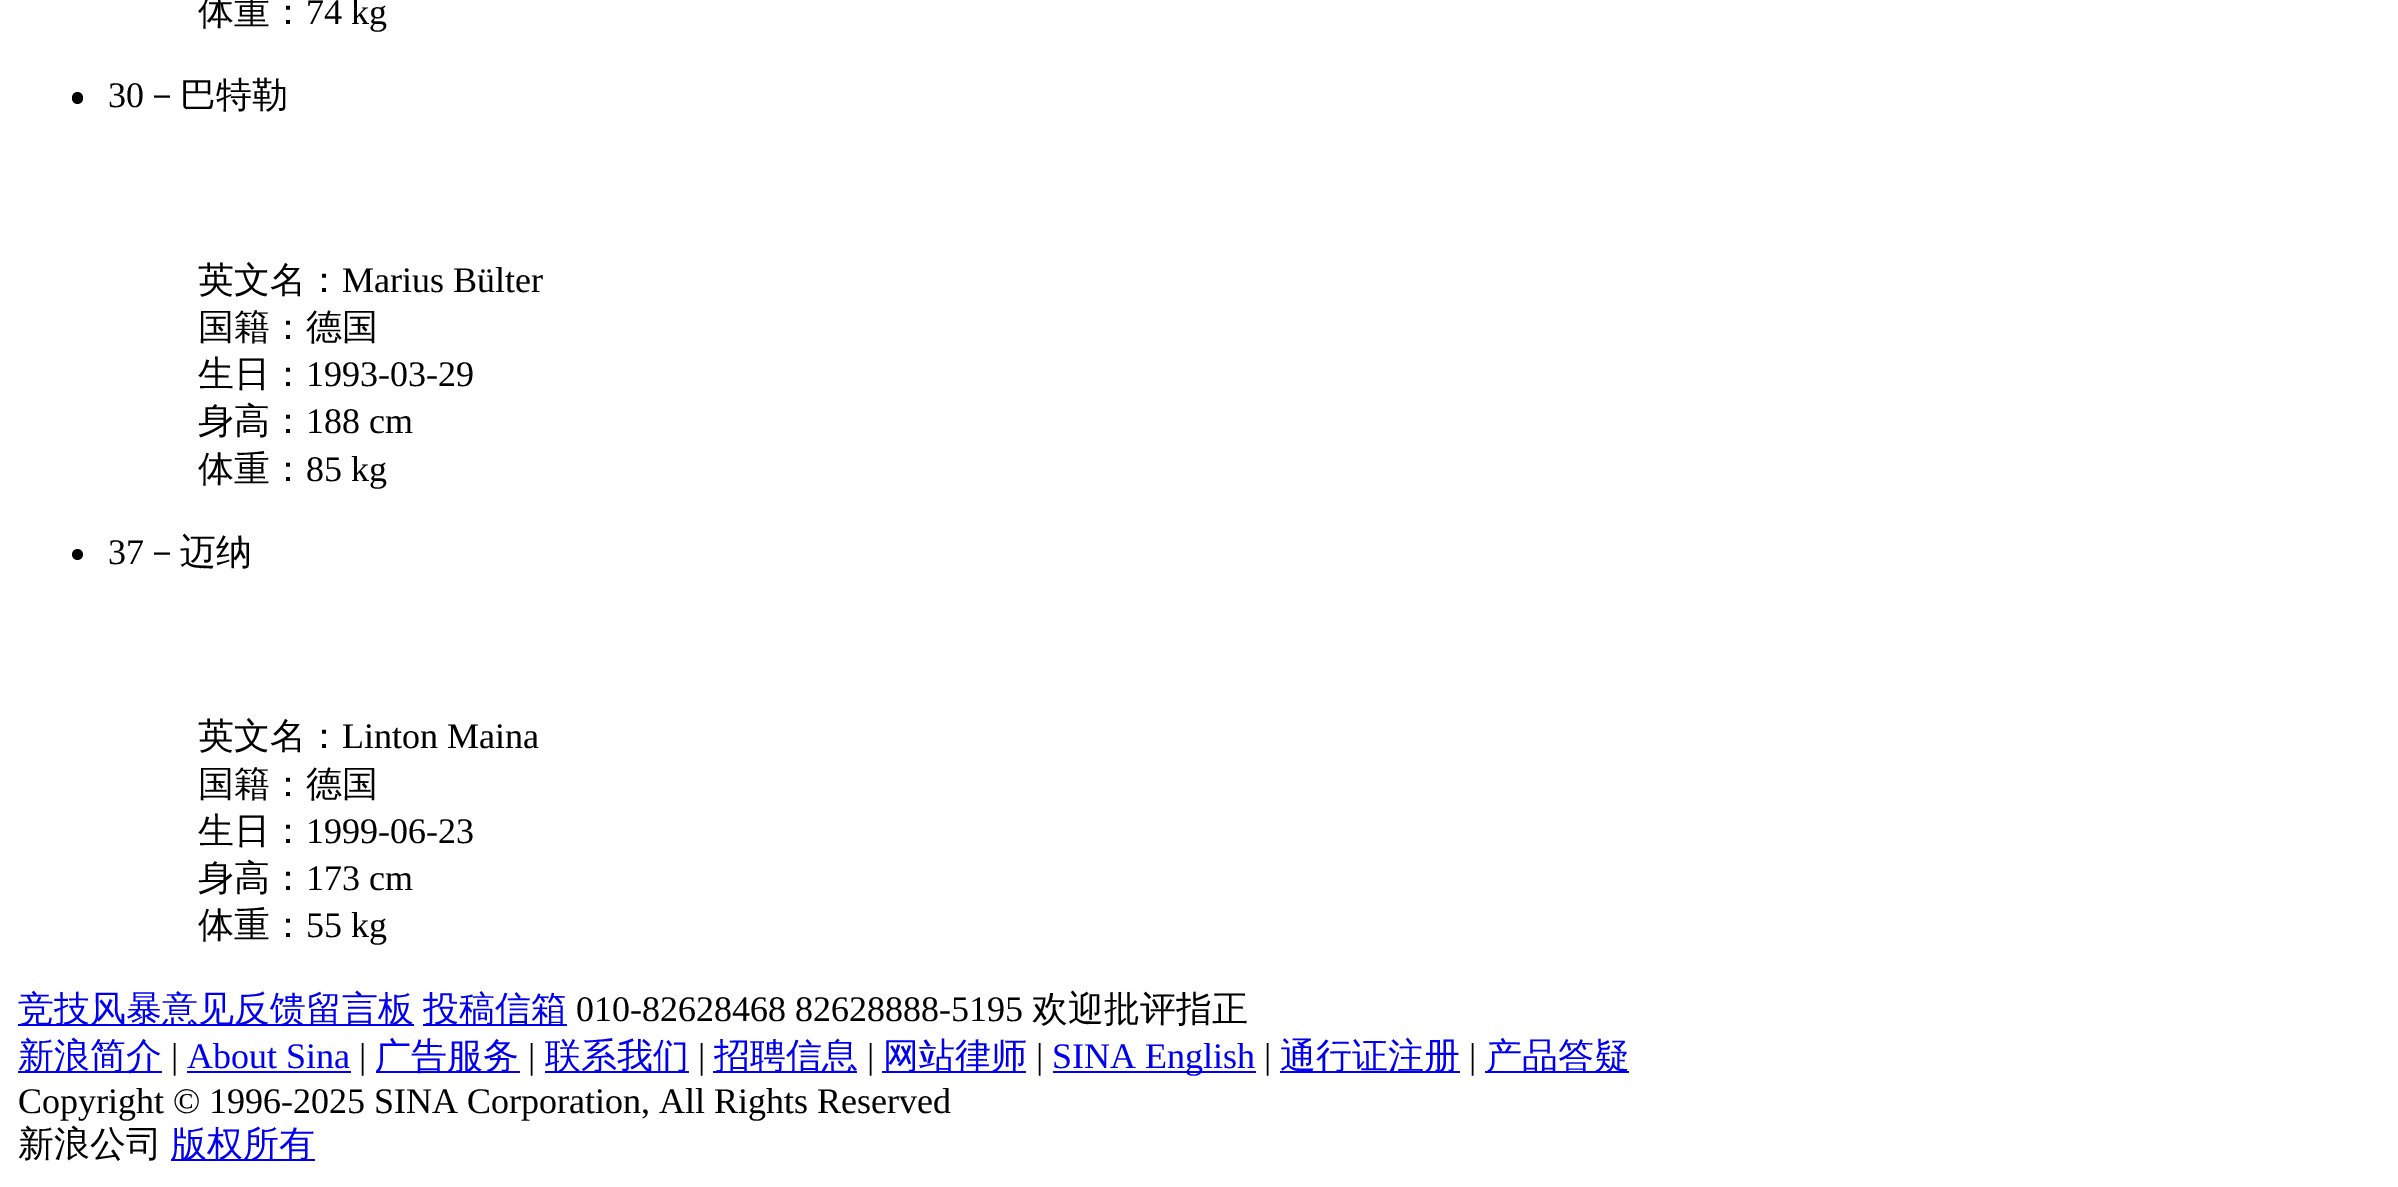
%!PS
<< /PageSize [2398 1187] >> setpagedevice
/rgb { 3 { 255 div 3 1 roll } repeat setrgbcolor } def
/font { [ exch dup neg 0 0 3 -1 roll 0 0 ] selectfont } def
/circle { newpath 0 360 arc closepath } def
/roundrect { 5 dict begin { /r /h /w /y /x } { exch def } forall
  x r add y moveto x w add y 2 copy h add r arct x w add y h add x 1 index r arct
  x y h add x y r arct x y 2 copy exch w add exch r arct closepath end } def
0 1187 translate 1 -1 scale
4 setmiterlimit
255 255 255 rgb
0 0 2398 1187 rectfill
0 0 0 rgb
72 92 11 12 5.5 roundrect fill
77.5 554.5 5.5 circle fill
[
  [18 1024 396 2 0 0 238]
  [423 1024 144 2 0 0 238]
  [18 1071 144 2 0 0 238]
  [187 1071 164 2 0 0 238]
  [376 1071 144 2 0 0 238]
  [545 1071 144 2 0 0 238]
  [713 1071 144 2 0 0 238]
  [882 1071 144 2 0 0 238]
  [1053 1071 203 2 0 0 238]
  [1280 1071 180 2 0 0 238]
  [1485 1071 144 2 0 0 238]
  [171 1159 144 2 0 0 238]
] { aload pop rgb rectfill } forall
/WenQuanYiZenHei-Medium 36 font
0 0 0 rgb
198 24 moveto (体重：) show
/LiberationSerif-Regular 36 font
306 24 moveto (74 kg) show
108 107 moveto (30) show
/WenQuanYiZenHei-Medium 36 font
144 107 moveto (－巴特勒) show
198 292 moveto (英文名：) show
/LiberationSerif-Regular 36 font
342 292 moveto (Marius Bülter) show
/WenQuanYiZenHei-Medium 36 font
198 339 moveto (国籍：德国) show
198 386 moveto (生日：) show
/LiberationSerif-Regular 36 font
306 386 moveto (1993-03-29) show
/WenQuanYiZenHei-Medium 36 font
198 433 moveto (身高：) show
/LiberationSerif-Regular 36 font
306 433 moveto (188 cm) show
/WenQuanYiZenHei-Medium 36 font
198 481 moveto (体重：) show
/LiberationSerif-Regular 36 font
306 481 moveto (85 kg) show
108 564 moveto (37) show
/WenQuanYiZenHei-Medium 36 font
144 564 moveto (－迈纳) show
198 748 moveto (英文名：) show
/LiberationSerif-Regular 36 font
342 748 moveto (Linton Maina) show
/WenQuanYiZenHei-Medium 36 font
198 796 moveto (国籍：德国) show
198 843 moveto (生日：) show
/LiberationSerif-Regular 36 font
306 843 moveto (1999-06-23) show
/WenQuanYiZenHei-Medium 36 font
198 890 moveto (身高：) show
/LiberationSerif-Regular 36 font
306 890 moveto (173 cm) show
/WenQuanYiZenHei-Medium 36 font
198 937 moveto (体重：) show
/LiberationSerif-Regular 36 font
306 937 moveto (55 kg) show
/WenQuanYiZenHei-Medium 36 font
0 0 238 rgb
18 1021 moveto (竞技风暴意见反馈留言板) show
423 1021 moveto (投稿信箱) show
/LiberationSerif-Regular 36 font
0 0 0 rgb
576 1021 moveto (010-82628468 82628888-5195) show
/WenQuanYiZenHei-Medium 36 font
1032 1021 moveto (欢迎批评指正) show
0 0 238 rgb
18 1068 moveto (新浪简介) show
/LiberationSerif-Regular 36 font
0 0 0 rgb
171 1068 moveto (|) show
0 0 238 rgb
187 1068 moveto (About Sina) show
0 0 0 rgb
359 1068 moveto (|) show
/WenQuanYiZenHei-Medium 36 font
0 0 238 rgb
375 1068 moveto (广告服务) show
/LiberationSerif-Regular 36 font
0 0 0 rgb
528 1068 moveto (|) show
/WenQuanYiZenHei-Medium 36 font
0 0 238 rgb
545 1068 moveto (联系我们) show
/LiberationSerif-Regular 36 font
0 0 0 rgb
698 1068 moveto (|) show
/WenQuanYiZenHei-Medium 36 font
0 0 238 rgb
714 1068 moveto (招聘信息) show
/LiberationSerif-Regular 36 font
0 0 0 rgb
867 1068 moveto (|) show
/WenQuanYiZenHei-Medium 36 font
0 0 238 rgb
883 1068 moveto (网站律师) show
/LiberationSerif-Regular 36 font
0 0 0 rgb
1036 1068 moveto (|) show
0 0 238 rgb
1052 1068 moveto (SINA English) show
0 0 0 rgb
1264 1068 moveto (|) show
/WenQuanYiZenHei-Medium 36 font
0 0 238 rgb
1280 1068 moveto (通行证注册) show
/LiberationSerif-Regular 36 font
0 0 0 rgb
1469 1068 moveto (|) show
/WenQuanYiZenHei-Medium 36 font
0 0 238 rgb
1486 1068 moveto (产品答疑) show
/LiberationSerif-Regular 36 font
0 0 0 rgb
18 1113 moveto (Copyright © 1996-2025 SINA Corporation, All Rights Reserved) show
/WenQuanYiZenHei-Medium 36 font
18 1156 moveto (新浪公司) show
0 0 238 rgb
171 1156 moveto (版权所有) show
showpage
